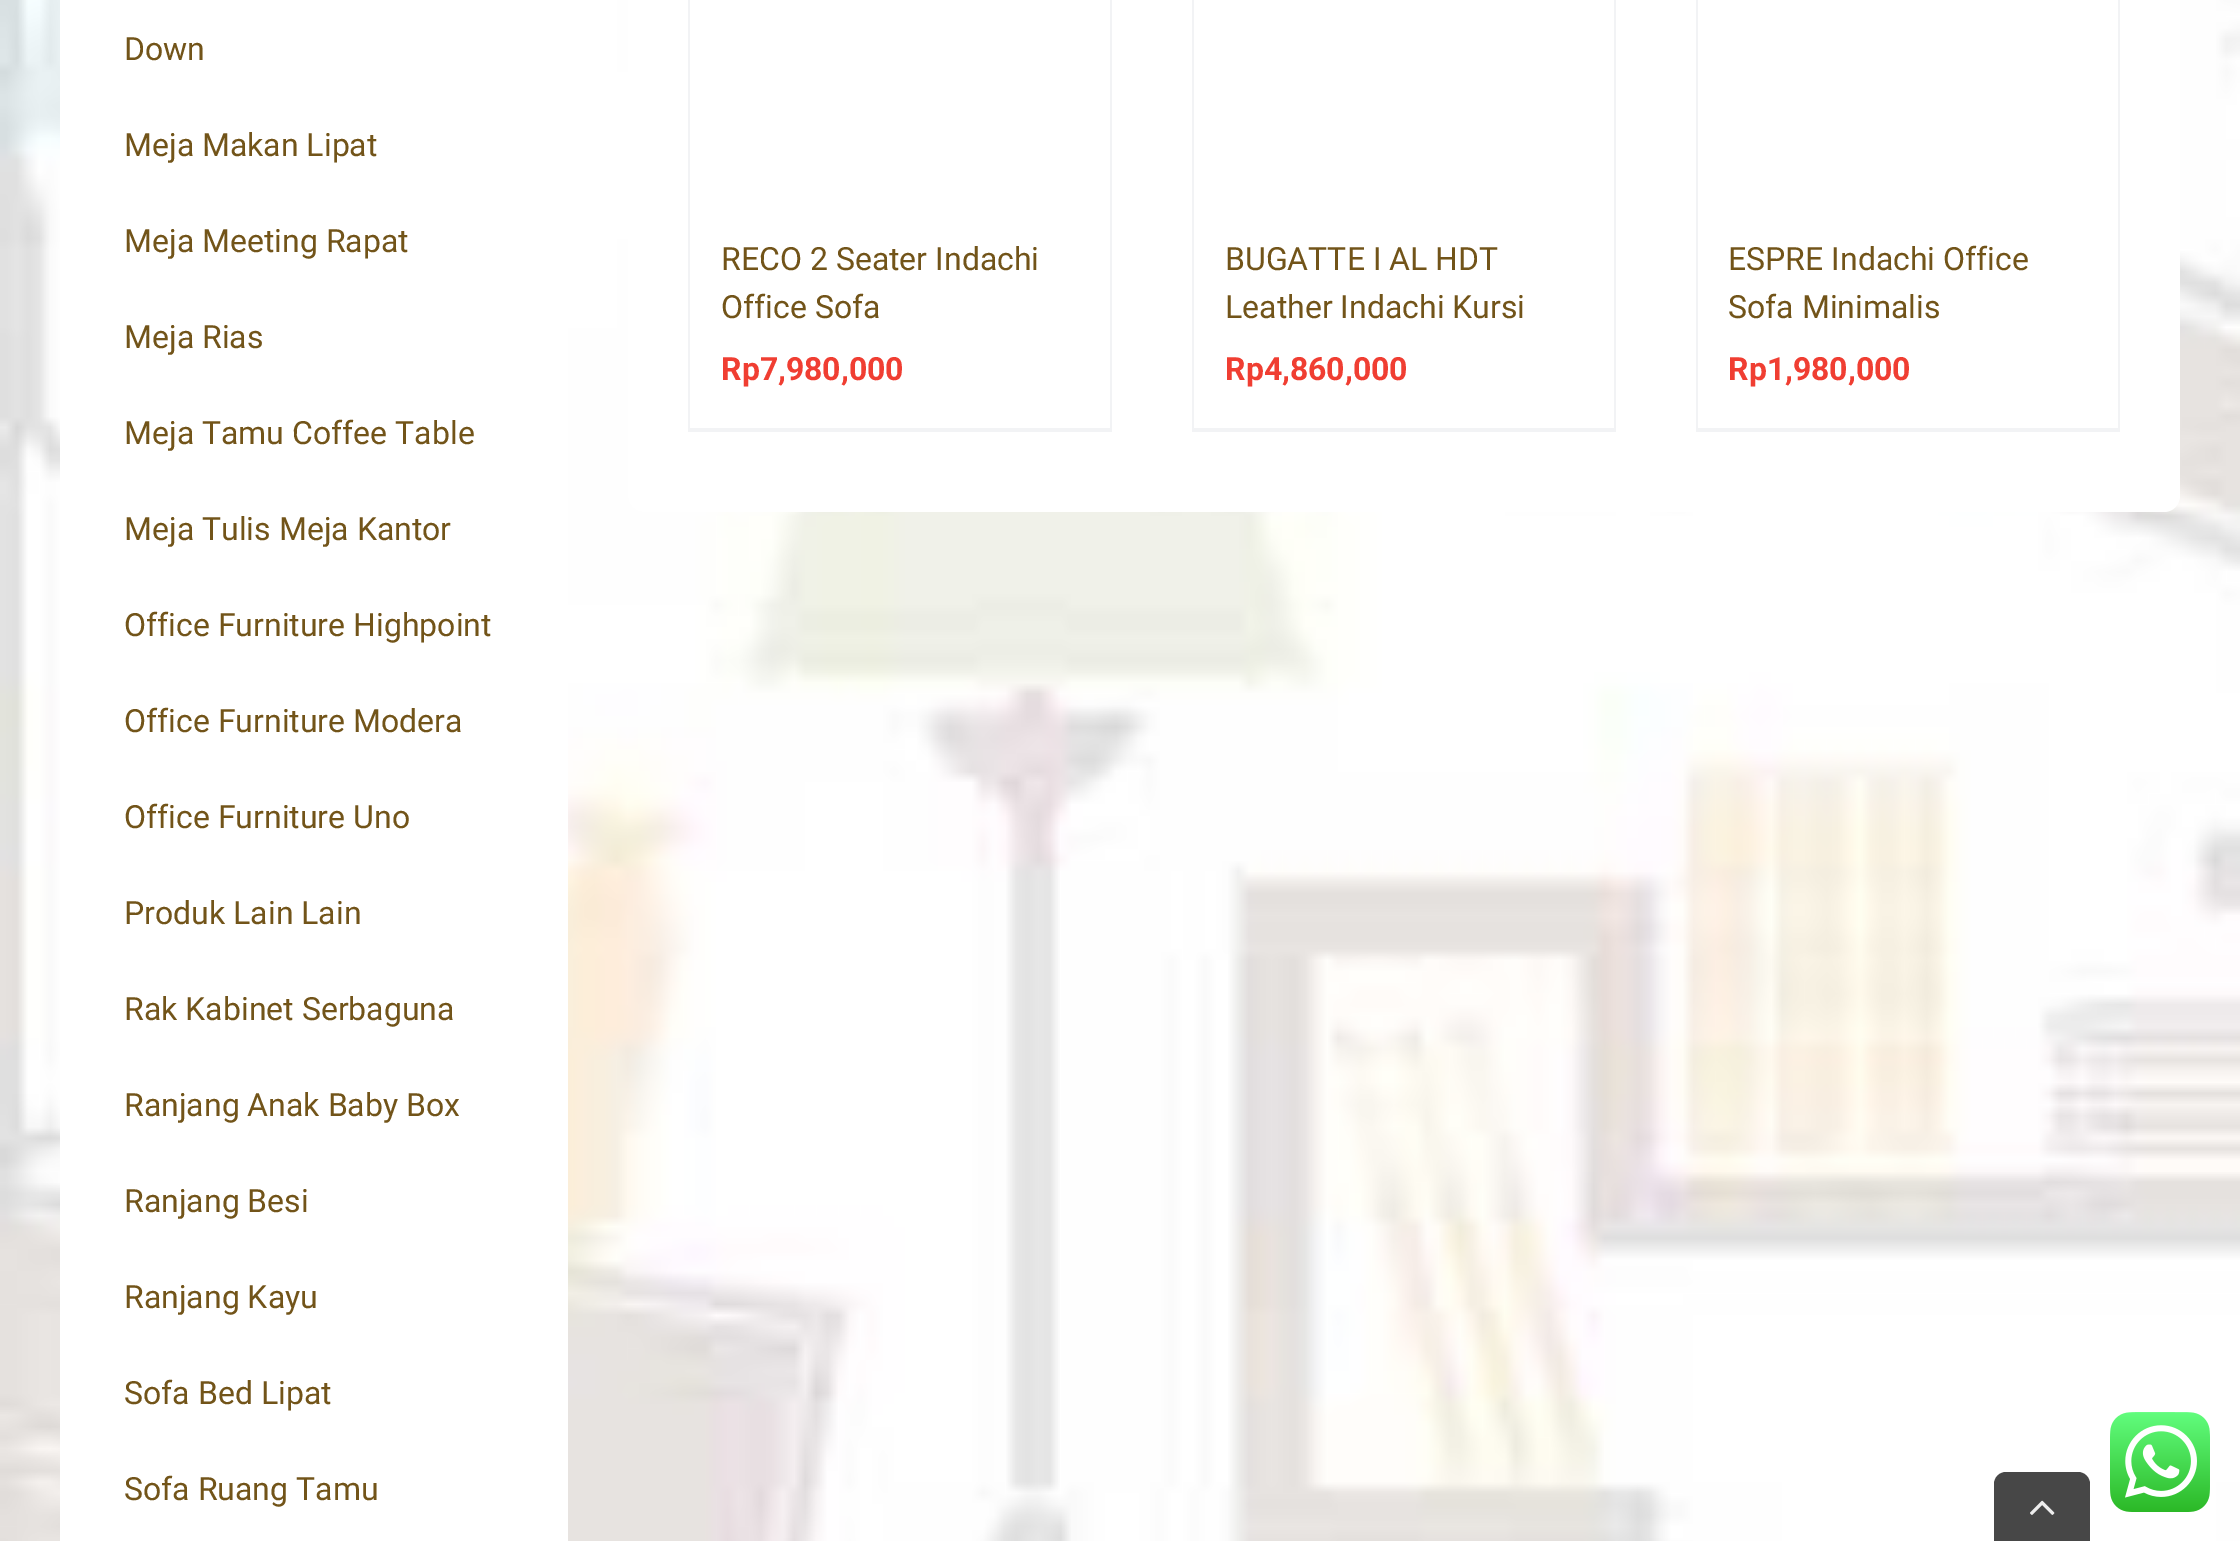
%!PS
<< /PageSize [2240 1541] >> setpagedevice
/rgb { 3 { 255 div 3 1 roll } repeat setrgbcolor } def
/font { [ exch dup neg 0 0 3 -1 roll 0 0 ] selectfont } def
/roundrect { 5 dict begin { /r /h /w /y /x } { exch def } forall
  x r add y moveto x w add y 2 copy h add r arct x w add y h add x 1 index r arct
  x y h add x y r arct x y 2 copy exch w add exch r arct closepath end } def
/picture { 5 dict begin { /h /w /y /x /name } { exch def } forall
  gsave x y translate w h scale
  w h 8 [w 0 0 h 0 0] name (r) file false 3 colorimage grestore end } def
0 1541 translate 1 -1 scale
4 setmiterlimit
255 255 255 rgb
0 0 2240 1541 rectfill
(img/1.rgb) 0 0 2240 1541 picture
60 0 508 1541 rectfill
628 -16 1552 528 16 roundrect fill
[
  [1110 0 2 432 242 243 245]
  [688 428 424 4 242 243 245]
  [688 0 2 432 242 243 245]
  [1614 0 2 432 242 243 245]
  [1192 428 424 4 242 243 245]
  [1192 0 2 432 242 243 245]
  [2118 0 2 432 242 243 245]
  [1696 428 424 4 242 243 245]
  [1696 0 2 432 242 243 245]
] { aload pop rgb rectfill } forall
71 71 71 rgb
2006 1472 moveto 2078 1472 lineto 2084.5 1472 2090 1477.5 2090 1484 curveto 2090 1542 lineto 1994 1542 lineto 1994 1484 lineto 1994 1477.5 1999.5 1472 2006 1472 curveto closepath fill
(img/2.rgb) 2030 1500 25 15 picture
(img/3.rgb) 2110 1412 100 100 picture
/Roboto-Regular 32 font
114 84 25 rgb
[
  [(Down) 124 60]
  [(Meja Makan Lipat) 124 156]
  [(Meja Meeting Rapat) 124 252]
  [(Meja Rias) 124 348]
  [(Meja Tamu Coffee Table) 124 444]
  [(Meja Tulis Meja Kantor) 124 540]
  [(Office Furniture Highpoint) 124 636]
  [(Office Furniture Modera) 124 732]
  [(Office Furniture Uno) 124 828]
  [(Produk Lain Lain) 124 924]
  [(Rak Kabinet Serbaguna) 124 1020]
  [(Ranjang Anak Baby Box) 124 1116]
  [(Ranjang Besi) 124 1212]
  [(Ranjang Kayu) 124 1308]
  [(Sofa Bed Lipat) 124 1404]
  [(Sofa Ruang Tamu) 124 1500]
  [(RECO 2 Seater Indachi) 721 270]
  [(Office Sofa) 721 318]
] { aload pop moveto show } forall
/Roboto-Bold 32 font
240 62 50 rgb
721 380 moveto (Rp7,980,000) show
/Roboto-Regular 32 font
114 84 25 rgb
1225 270 moveto (BUGATTE I AL HDT) show
1225 318 moveto (Leather Indachi Kursi) show
/Roboto-Bold 32 font
240 62 50 rgb
1225 380 moveto (Rp4,860,000) show
/Roboto-Regular 32 font
114 84 25 rgb
1728 270 moveto (ESPRE Indachi Office) show
1728 318 moveto (Sofa Minimalis) show
/Roboto-Bold 32 font
240 62 50 rgb
1728 380 moveto (Rp1,980,000) show
showpage
